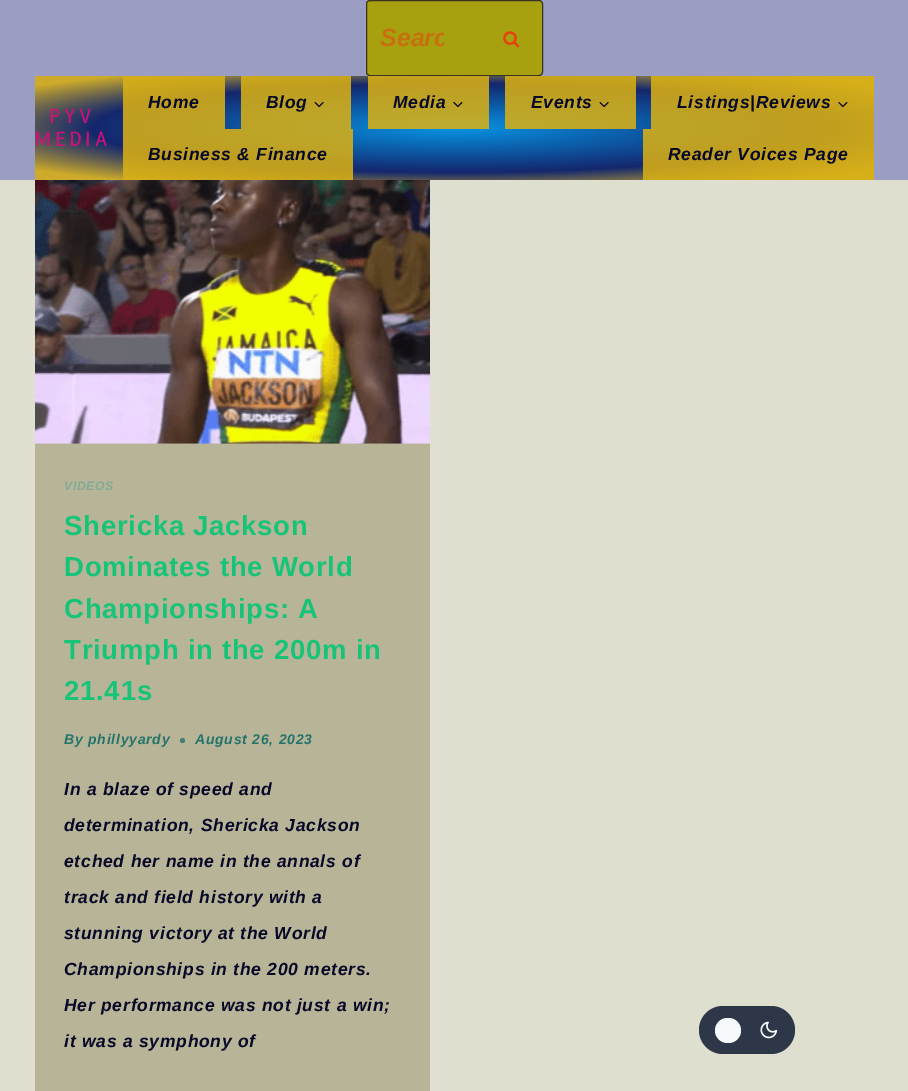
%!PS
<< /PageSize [908 1091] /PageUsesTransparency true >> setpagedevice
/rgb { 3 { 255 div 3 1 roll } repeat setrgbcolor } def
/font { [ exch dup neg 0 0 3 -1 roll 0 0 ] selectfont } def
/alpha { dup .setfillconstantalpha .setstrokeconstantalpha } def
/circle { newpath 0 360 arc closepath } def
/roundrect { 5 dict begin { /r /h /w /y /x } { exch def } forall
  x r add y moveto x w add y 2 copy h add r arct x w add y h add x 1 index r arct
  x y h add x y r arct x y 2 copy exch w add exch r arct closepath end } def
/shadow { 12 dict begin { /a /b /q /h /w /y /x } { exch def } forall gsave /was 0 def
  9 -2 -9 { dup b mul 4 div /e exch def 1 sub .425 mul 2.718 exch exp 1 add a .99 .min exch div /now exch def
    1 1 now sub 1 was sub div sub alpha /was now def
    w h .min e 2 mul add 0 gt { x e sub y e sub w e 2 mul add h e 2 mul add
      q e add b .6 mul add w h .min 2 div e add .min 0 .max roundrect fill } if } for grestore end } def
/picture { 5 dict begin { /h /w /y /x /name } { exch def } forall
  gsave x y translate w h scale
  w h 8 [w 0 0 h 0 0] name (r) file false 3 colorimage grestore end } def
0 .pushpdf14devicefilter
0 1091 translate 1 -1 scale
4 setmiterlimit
223 223 208 rgb
0 0 908 1091 rectfill
155 158 194 rgb
0 0 908 180 rectfill
168 161 15 rgb
366 0 177 76 4 roundrect fill
0.78 alpha
27 20 41 rgb
366.5 0.5 176 75 3.5 roundrect stroke
1 alpha
(img/1.rgb) 503 31 17 17 picture
gsave 35 76 moveto 651 76 lineto 651 180 lineto 35 180 lineto closepath clip newpath 454 128 translate 593 73 scale
<< /ShadingType 3 /ColorSpace /DeviceRGB /Coords [0 0 0 0 0 1] /Extend [true true] /Function << /FunctionType 3 /Domain [0 1] /Functions [<< /FunctionType 2 /Domain [0 1] /C0 [0.024 0.576 0.89] /C1 [0.078 0.153 0.427] /N 1 >> << /FunctionType 2 /Domain [0 1] /C0 [0.078 0.153 0.427] /C1 [0.804 0.667 0.165] /N 1 >> << /FunctionType 2 /Domain [0 1] /C0 [0.804 0.667 0.165] /C1 [0.804 0.667 0.165] /N 1 >>] /Bounds [0.61 0.91] /Encode [0 1 0 1 0 1] >> >> shfill grestore
gsave 643 129 moveto 874 129 lineto 874 180 lineto 643 180 lineto closepath clip newpath 454 128 translate 593 73 scale
<< /ShadingType 3 /ColorSpace /DeviceRGB /Coords [0 0 0 0 0 1] /Extend [true true] /Function << /FunctionType 3 /Domain [0 1] /Functions [<< /FunctionType 2 /Domain [0 1] /C0 [0.741 0.675 0.188] /C1 [0.749 0.62 0.125] /N 1 >> << /FunctionType 2 /Domain [0 1] /C0 [0.749 0.62 0.125] /C1 [0.843 0.686 0.094] /N 1 >> << /FunctionType 2 /Domain [0 1] /C0 [0.843 0.686 0.094] /C1 [0.843 0.686 0.094] /N 1 >>] /Bounds [0.61 0.91] /Encode [0 1 0 1 0 1] >> >> shfill grestore
gsave 123 129 moveto 353 129 lineto 353 180 lineto 123 180 lineto closepath clip newpath 454 128 translate 593 73 scale
<< /ShadingType 3 /ColorSpace /DeviceRGB /Coords [0 0 0 0 0 1] /Extend [true true] /Function << /FunctionType 3 /Domain [0 1] /Functions [<< /FunctionType 2 /Domain [0 1] /C0 [0.741 0.675 0.188] /C1 [0.749 0.62 0.125] /N 1 >> << /FunctionType 2 /Domain [0 1] /C0 [0.749 0.62 0.125] /C1 [0.843 0.686 0.094] /N 1 >> << /FunctionType 2 /Domain [0 1] /C0 [0.843 0.686 0.094] /C1 [0.843 0.686 0.094] /N 1 >>] /Bounds [0.61 0.91] /Encode [0 1 0 1 0 1] >> >> shfill grestore
gsave 651 76 moveto 874 76 lineto 874 129 lineto 651 129 lineto closepath clip newpath 454 128 translate 593 73 scale
<< /ShadingType 3 /ColorSpace /DeviceRGB /Coords [0 0 0 0 0 1] /Extend [true true] /Function << /FunctionType 3 /Domain [0 1] /Functions [<< /FunctionType 2 /Domain [0 1] /C0 [0.741 0.675 0.188] /C1 [0.749 0.62 0.125] /N 1 >> << /FunctionType 2 /Domain [0 1] /C0 [0.749 0.62 0.125] /C1 [0.843 0.686 0.094] /N 1 >> << /FunctionType 2 /Domain [0 1] /C0 [0.843 0.686 0.094] /C1 [0.843 0.686 0.094] /N 1 >>] /Bounds [0.61 0.91] /Encode [0 1 0 1 0 1] >> >> shfill grestore
gsave 505 76 moveto 636 76 lineto 636 129 lineto 505 129 lineto closepath clip newpath 454 128 translate 593 73 scale
<< /ShadingType 3 /ColorSpace /DeviceRGB /Coords [0 0 0 0 0 1] /Extend [true true] /Function << /FunctionType 3 /Domain [0 1] /Functions [<< /FunctionType 2 /Domain [0 1] /C0 [0.741 0.675 0.188] /C1 [0.749 0.62 0.125] /N 1 >> << /FunctionType 2 /Domain [0 1] /C0 [0.749 0.62 0.125] /C1 [0.843 0.686 0.094] /N 1 >> << /FunctionType 2 /Domain [0 1] /C0 [0.843 0.686 0.094] /C1 [0.843 0.686 0.094] /N 1 >>] /Bounds [0.61 0.91] /Encode [0 1 0 1 0 1] >> >> shfill grestore
gsave 368 76 moveto 489 76 lineto 489 129 lineto 368 129 lineto closepath clip newpath 454 128 translate 593 73 scale
<< /ShadingType 3 /ColorSpace /DeviceRGB /Coords [0 0 0 0 0 1] /Extend [true true] /Function << /FunctionType 3 /Domain [0 1] /Functions [<< /FunctionType 2 /Domain [0 1] /C0 [0.741 0.675 0.188] /C1 [0.749 0.62 0.125] /N 1 >> << /FunctionType 2 /Domain [0 1] /C0 [0.749 0.62 0.125] /C1 [0.843 0.686 0.094] /N 1 >> << /FunctionType 2 /Domain [0 1] /C0 [0.843 0.686 0.094] /C1 [0.843 0.686 0.094] /N 1 >>] /Bounds [0.61 0.91] /Encode [0 1 0 1 0 1] >> >> shfill grestore
gsave 241 76 moveto 351 76 lineto 351 129 lineto 241 129 lineto closepath clip newpath 454 128 translate 593 73 scale
<< /ShadingType 3 /ColorSpace /DeviceRGB /Coords [0 0 0 0 0 1] /Extend [true true] /Function << /FunctionType 3 /Domain [0 1] /Functions [<< /FunctionType 2 /Domain [0 1] /C0 [0.741 0.675 0.188] /C1 [0.749 0.62 0.125] /N 1 >> << /FunctionType 2 /Domain [0 1] /C0 [0.749 0.62 0.125] /C1 [0.843 0.686 0.094] /N 1 >> << /FunctionType 2 /Domain [0 1] /C0 [0.843 0.686 0.094] /C1 [0.843 0.686 0.094] /N 1 >>] /Bounds [0.61 0.91] /Encode [0 1 0 1 0 1] >> >> shfill grestore
gsave 123 76 moveto 225 76 lineto 225 129 lineto 123 129 lineto closepath clip newpath 454 128 translate 593 73 scale
<< /ShadingType 3 /ColorSpace /DeviceRGB /Coords [0 0 0 0 0 1] /Extend [true true] /Function << /FunctionType 3 /Domain [0 1] /Functions [<< /FunctionType 2 /Domain [0 1] /C0 [0.741 0.675 0.188] /C1 [0.749 0.62 0.125] /N 1 >> << /FunctionType 2 /Domain [0 1] /C0 [0.749 0.62 0.125] /C1 [0.843 0.686 0.094] /N 1 >> << /FunctionType 2 /Domain [0 1] /C0 [0.843 0.686 0.094] /C1 [0.843 0.686 0.094] /N 1 >>] /Bounds [0.61 0.91] /Encode [0 1 0 1 0 1] >> >> shfill grestore
(img/2.rgb) 314 102 10 6 picture
(img/3.rgb) 453 102 10 6 picture
(img/4.rgb) 599 102 10 6 picture
(img/5.rgb) 838 102 10 6 picture
221 224 226 rgb
48 211 370 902 0 9.5 1 shadow
184 180 152 rgb
35 443 395 648 rectfill
(img/6.rgb) 35 180 395 264 picture
66 128 115 rgb
182.5 740.5 2.5 circle fill
45 55 72 rgb
699 1006 96 48 24 roundrect fill
247 250 252 rgb
715 1018 26 25 12.5 roundrect fill
(img/7.rgb) 760 1021 18 18 picture
gsave
380 24 64 29 rectclip
/LiberationSans-BoldItalic 25 font
198 113 14 rgb
380 46 moveto (Searc) show
grestore
/B612-Regular 19 font
212 15 121 rgb
49 123 moveto 3.5 0 (PYV) ashow
34 146 moveto 3.5 0 (MEDIA) ashow
/LiberationSans-BoldItalic 17.5 font
8 8 39 rgb
148 108 moveto 0.75 0 (Home) ashow
266 108 moveto 0.75 0 (Blog) ashow
393 108 moveto 0.75 0 (Media) ashow
531 108 moveto 0.75 0 (Events) ashow
677 108 moveto 0.75 0 (Listings|Reviews) ashow
148 160 moveto 0.75 0 (Business & Finance) ashow
668 160 moveto 0.75 0 (Reader Voices Page) ashow
/LiberationSans-BoldItalic 12.25 font
129 171 146 rgb
64 490 moveto 0.5 0 (VIDEOS) ashow
/LiberationSans-Bold 27.5 font
23 196 119 rgb
64 535 moveto 0.75 0 (Shericka Jackson) ashow
64 576 moveto 0.75 0 (Dominates the World) ashow
64 618 moveto 0.75 0 (Championships: A) ashow
64 659 moveto 0.75 0 (Triumph in the 200m in) ashow
64 700 moveto 0.75 0 (21.41s) ashow
/LiberationSans-BoldItalic 14 font
36 115 106 rgb
64 744 moveto 0.75 0 (By) ashow
88 744 moveto 0.75 0 (phillyyardy) ashow
195 744 moveto 0.75 0 (August 26, 2023) ashow
/LiberationSans-BoldItalic 17.5 font
8 8 39 rgb
64 795 moveto 0.75 0 (In a blaze of speed and) ashow
64 831 moveto 0.75 0 (determination, Shericka Jackson) ashow
64 867 moveto 0.75 0 (etched her name in the annals of) ashow
64 903 moveto 0.75 0 (track and field history with a) ashow
64 939 moveto 0.75 0 (stunning victory at the World) ashow
64 975 moveto 0.75 0 (Championships in the 200 meters.) ashow
64 1011 moveto 0.75 0 (Her performance was not just a win;) ashow
64 1047 moveto 0.75 0 (it was a symphony of) ashow
.poppdf14devicefilter showpage
